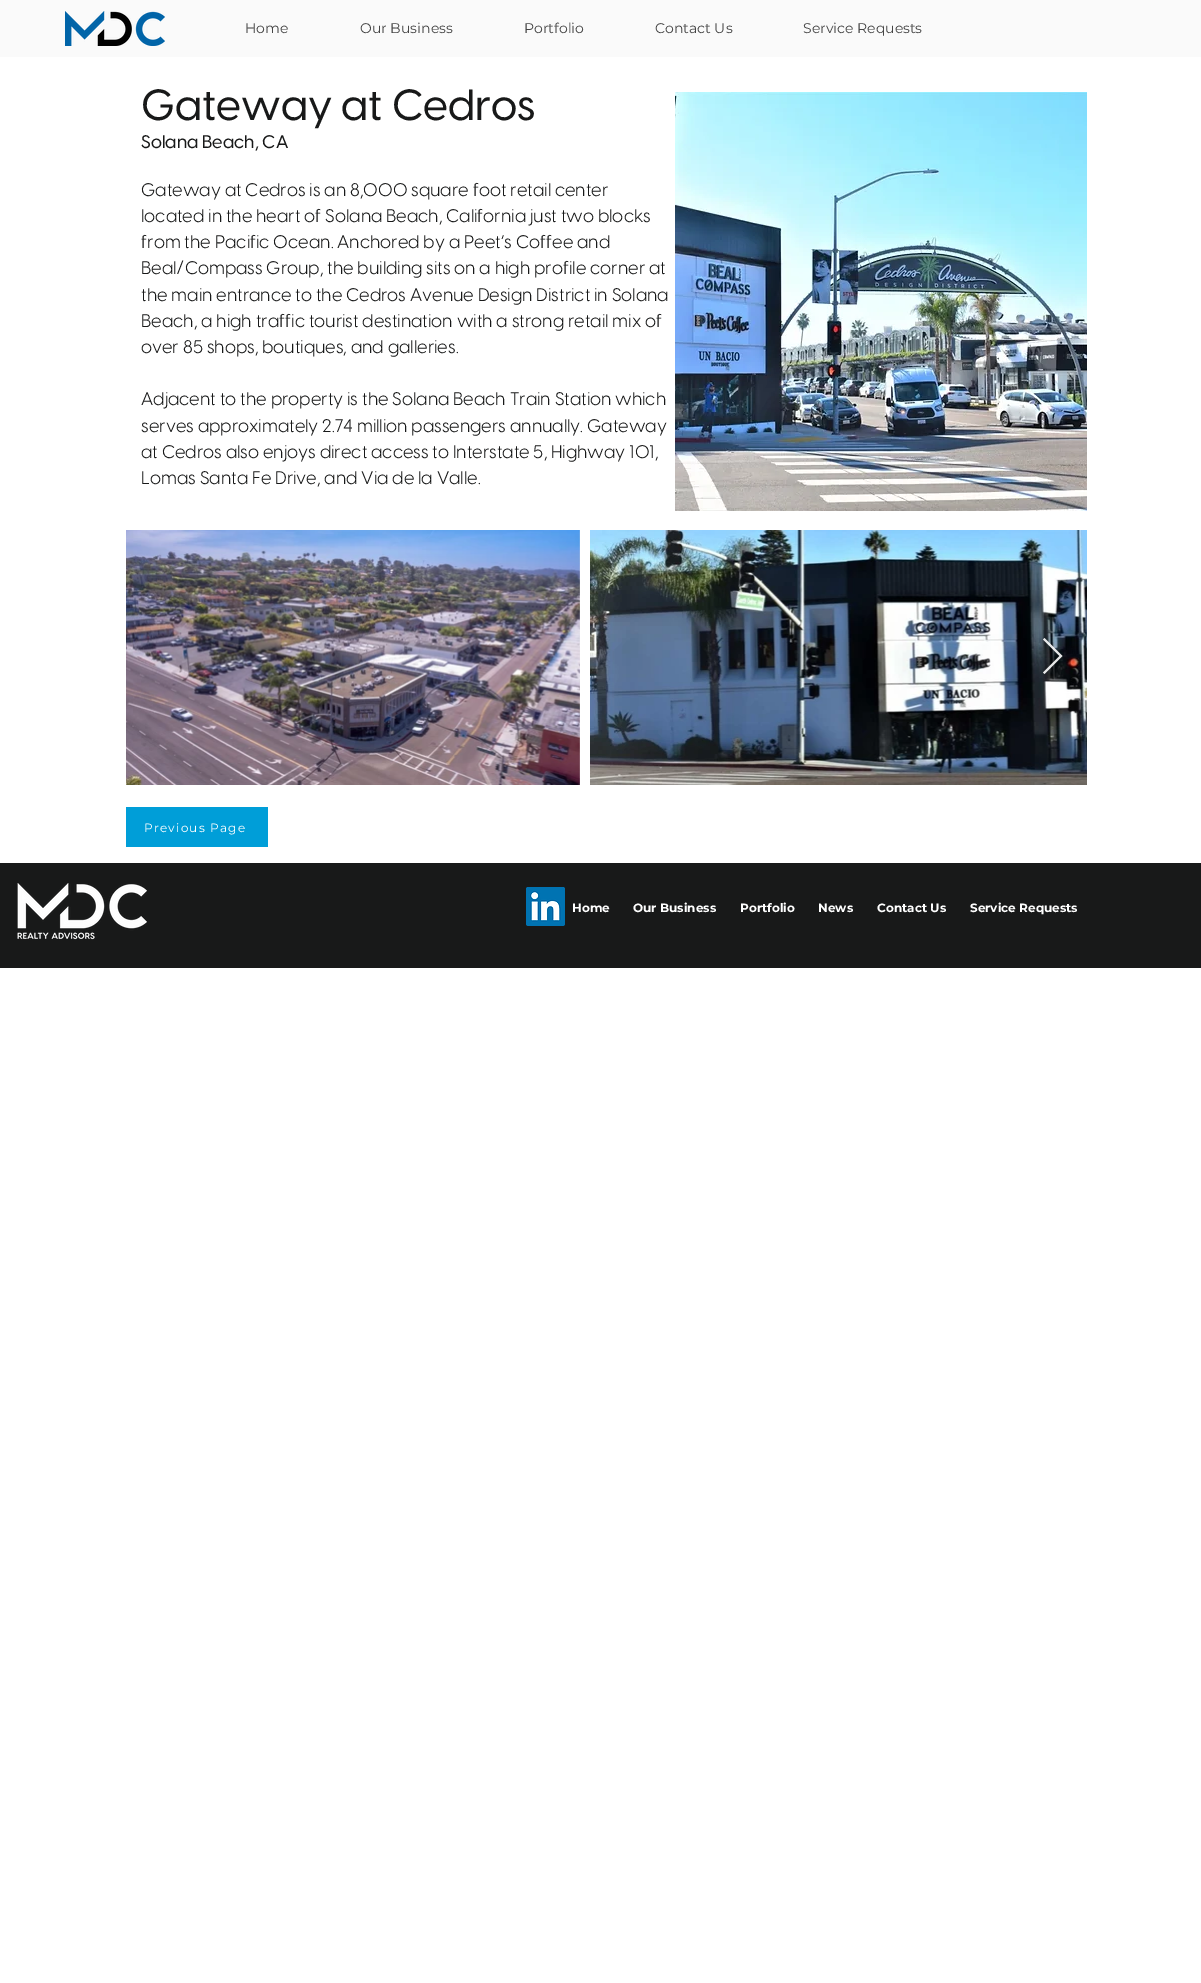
%!PS
<< /PageSize [1201 1983] /PageUsesTransparency true >> setpagedevice
/rgb { 3 { 255 div 3 1 roll } repeat setrgbcolor } def
/font { [ exch dup neg 0 0 3 -1 roll 0 0 ] selectfont } def
/alpha { dup .setfillconstantalpha .setstrokeconstantalpha } def
/picture { 5 dict begin { /h /w /y /x /name } { exch def } forall
  gsave x y translate w h scale
  w h 8 [w 0 0 h 0 0] name (r) file false 3 colorimage grestore end } def
0 .pushpdf14devicefilter
0 1983 translate 1 -1 scale
4 setmiterlimit
255 255 255 rgb
0 0 1201 1983 rectfill
250 250 250 rgb
0 0 1201 57 rectfill
(img/1.rgb) 65 11 100 35 picture
(img/2.rgb) 675 92 412 419 picture
(img/3.rgb) 126 530 454 255 picture
(img/4.rgb) 590 530 497 255 picture
0.9 alpha
255 255 255 rgb
1043 639.5 moveto 1044.5 638 lineto 1062.5 656 lineto 1044.5 674 lineto 1043 672.5 lineto 1059.5 656 lineto closepath fill
1 alpha
0 158 216 rgb
126 807 142 40 rectfill
24 25 25 rgb
0 863 1201 105 rectfill
(img/5.rgb) 17 883 130 57 picture
(img/6.rgb) 526 887 39 39 picture
/Montserrat-Regular 14 font
68 68 68 rgb
[
  [(Home) 245 33]
  [(Our Business) 360 33]
  [(Portfolio) 524 33]
  [(Contact Us) 655 33]
  [(Service Requests) 803 33]
] { aload pop moveto show } forall
/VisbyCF-Medium 43 font
24 25 25 rgb
141 120 moveto (Gateway at Cedros) show
/VisbyCF-Medium 18 font
141 148 moveto (Solana Beach, CA) show
/VisbyCF-Regular 18 font
[
  [(Gateway at Cedros is an 8,000 square foot retail center) 141 196]
  [(located in the heart of Solana Beach, California just two blocks) 141 222]
  [(from the Pacific Ocean. Anchored by a Peet’s Coffee and) 141 248]
  [(Beal/Compass Group, the building sits on a high profile corner at) 141 274]
  [(the main entrance to the Cedros Avenue Design District in Solana) 141 301]
  [(Beach, a high traffic tourist destination with a strong retail mix of) 141 327]
  [(over 85 shops, boutiques, and galleries.) 141 353]
  [(Adjacent to the property is the Solana Beach Train Station which) 141 405]
  [(serves approximately 2.74 million passengers annually. Gateway) 141 432]
  [(at Cedros also enjoys direct access to Interstate 5, Highway 101,) 141 458]
  [(Lomas Santa Fe Drive, and Via de la Valle.) 141 484]
] { aload pop moveto show } forall
/Montserrat-Regular 12 font
255 255 255 rgb
144 832 moveto 1.25 0 (Previous Page) ashow
/Montserrat-Bold 12 font
[
  [(Home) 572 912]
  [(Our Business) 633 912]
  [(Portfolio) 740 912]
  [(News) 818 912]
  [(Contact Us) 877 912]
  [(Service Requests) 970 912]
] { aload pop moveto show } forall
.poppdf14devicefilter showpage
